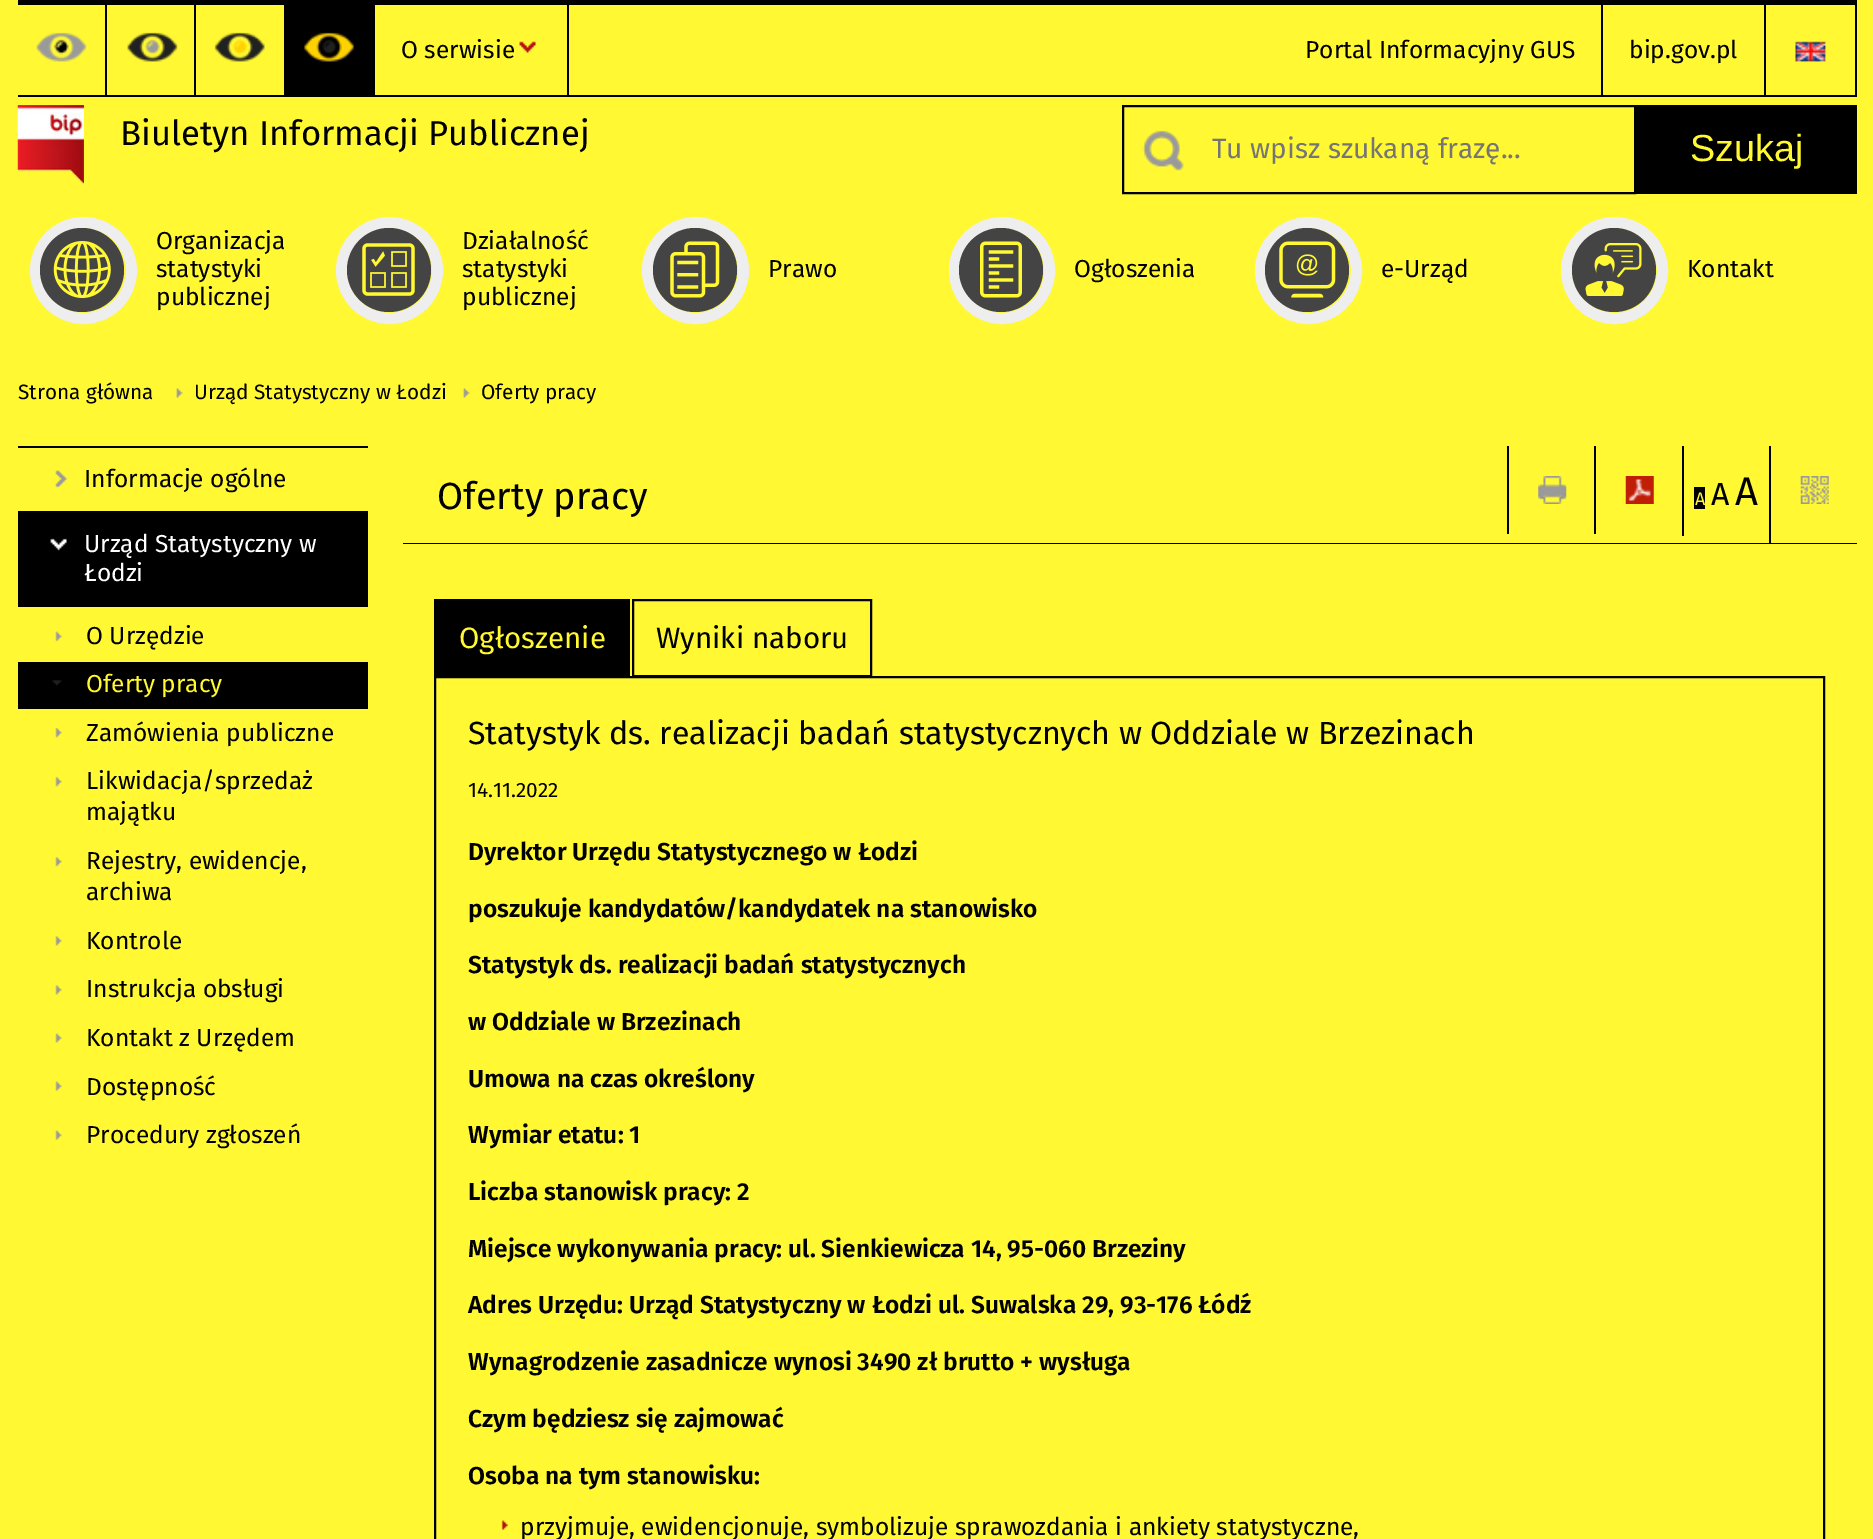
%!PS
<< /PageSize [1873 1539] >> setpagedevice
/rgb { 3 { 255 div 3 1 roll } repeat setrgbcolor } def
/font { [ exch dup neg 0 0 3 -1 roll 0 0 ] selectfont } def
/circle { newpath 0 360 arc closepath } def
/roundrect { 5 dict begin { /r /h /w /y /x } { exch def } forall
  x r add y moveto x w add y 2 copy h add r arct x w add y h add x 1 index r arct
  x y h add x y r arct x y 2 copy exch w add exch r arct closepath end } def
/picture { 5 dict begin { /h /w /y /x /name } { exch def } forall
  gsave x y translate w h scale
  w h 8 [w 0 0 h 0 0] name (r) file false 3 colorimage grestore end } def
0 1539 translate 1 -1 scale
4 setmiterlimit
255 248 50 rgb
0 0 1873 1539 rectfill
0 0 0 rgb
18 0 1839 5 rectfill
18 95 1839 2 rectfill
(img/1.rgb) 36 32 51 30 picture
105 5 2 90 rectfill
(img/2.rgb) 127 32 51 30 picture
194 5 2 90 rectfill
(img/3.rgb) 214 32 51 30 picture
284 5 91 90 rectfill
(img/4.rgb) 304 32 50 30 picture
(img/5.rgb) 519 41 17 12 picture
[
  [567 5 2 90 0 0 0]
  [1601 5 2 90 0 0 0]
  [1764 5 2 90 0 0 0]
  [1855 5 2 90 0 0 0]
] { aload pop rgb rectfill } forall
(img/6.rgb) 1795 41 31 21 picture
(img/7.rgb) 17 105 67 80 picture
2 setlinewidth
1123 106 512 87 rectstroke
(img/8.rgb) 1142 130 42 41 picture
1636 105 221 89 rectfill
238 238 238 rgb
11 setlinewidth
83.5 270.5 48 circle stroke
68 68 68 rgb
82 270 42 circle fill
(img/9.rgb) 53 241 58 58 picture
238 238 238 rgb
389.5 270.5 48 circle stroke
68 68 68 rgb
389 270 42 circle fill
(img/10.rgb) 362 243 53 53 picture
238 238 238 rgb
695.5 270.5 48 circle stroke
68 68 68 rgb
695 270 42 circle fill
(img/11.rgb) 670 241 50 57 picture
238 238 238 rgb
954.5 222.5 95 96 47.5 roundrect stroke
68 68 68 rgb
1001 270 42 circle fill
(img/12.rgb) 980 241 42 57 picture
238 238 238 rgb
1308.5 270.5 48 circle stroke
68 68 68 rgb
1307 270 42 circle fill
(img/13.rgb) 1279 241 57 57 picture
238 238 238 rgb
1614.5 270.5 48 circle stroke
68 68 68 rgb
1614 270 42 circle fill
(img/14.rgb) 1585 243 57 53 picture
(img/15.rgb) 176 388 7 10 picture
(img/16.rgb) 463 388 7 10 picture
(img/17.rgb) 55 470 12 18 picture
0 0 0 rgb
18 446 350 2 rectfill
18 511 350 96 rectfill
(img/18.rgb) 50 538 17 13 picture
(img/19.rgb) 55 631 7 11 picture
18 662 350 47 rectfill
(img/20.rgb) 52 680 10 6 picture
(img/21.rgb) 55 727 7 11 picture
(img/22.rgb) 55 776 7 11 picture
(img/23.rgb) 55 857 7 10 picture
(img/24.rgb) 55 936 7 10 picture
(img/24.rgb) 55 985 7 10 picture
(img/25.rgb) 55 1033 7 10 picture
(img/26.rgb) 55 1081 7 10 picture
(img/26.rgb) 55 1130 7 10 picture
403 543 1454 1 rectfill
1507 446 2 88 rectfill
(img/27.rgb) 1538 476 29 28 picture
1594 446 2 88 rectfill
(img/28.rgb) 1625 476 29 28 picture
[
  [1682 446 2 90 0 0 0]
  [1694 487 11 22 0 0 0]
  [1769 446 2 97 0 0 0]
] { aload pop rgb rectfill } forall
(img/29.rgb) 1800 476 29 28 picture
434 599 196 77 rectfill
2 setlinewidth
435 677 1389 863 rectstroke
633 600 238 76 rectstroke
(img/30.rgb) 501 1520 7 10 picture
/FiraSans-Regular 24.5 font
[
  [(O serwisie) 401 58]
  [(Portal Informacyjny GUS) 1305 58]
  [(bip.gov.pl) 1629 58]
] { aload pop moveto show } forall
/FiraSans-Regular 34.6 font
120 145 moveto (Biuletyn Informacji Publicznej) show
/FiraSans-Regular 28 font
117 117 117 rgb
1212 158 moveto (Tu wpisz szukaną frazę...) show
/LiberationSans-Regular 37.75 font
255 248 50 rgb
1690 161 moveto (Szukaj) show
/FiraSans-Regular 24.5 font
0 0 0 rgb
[
  [(Organizacja) 156 249]
  [(statystyki) 156 277]
  [(publicznej) 156 305]
  [(Działalność) 462 249]
  [(statystyki) 462 277]
  [(publicznej) 462 305]
  [(Prawo) 768 277]
  [(Ogłoszenia) 1074 277]
  [(e-Urząd) 1381 277]
  [(Kontakt) 1687 277]
] { aload pop moveto show } forall
/FiraSans-Regular 20.75 font
[
  [(Strona główna) 18 399]
  [(Urząd Statystyczny w Łodzi) 194 399]
  [(Oferty pracy) 481 399]
] { aload pop moveto show } forall
/FiraSans-Regular 24.5 font
84 487 moveto (Informacje ogólne) show
255 255 255 rgb
84 552 moveto (Urząd Statystyczny w) show
84 581 moveto (Łodzi) show
0 0 0 rgb
86 644 moveto (O Urzędzie) show
255 248 50 rgb
86 692 moveto (Oferty pracy) show
0 0 0 rgb
[
  [(Zamówienia publiczne) 86 741]
  [(Likwidacja/sprzedaż) 86 789]
  [(majątku) 86 820]
  [(Rejestry, ewidencje,) 86 869]
  [(archiwa) 86 900]
  [(Kontrole) 86 949]
  [(Instrukcja obsługi) 86 997]
  [(Kontakt z Urzędem) 86 1046]
  [(Dostępność) 86 1095]
  [(Procedury zgłoszeń) 86 1143]
] { aload pop moveto show } forall
/FiraSans-Regular 37.75 font
437 509 moveto (Oferty pracy) show
/FiraSans-Regular 18 font
255 248 50 rgb
1695 505 moveto (A) show
/FiraSans-Regular 32 font
0 0 0 rgb
1711 505 moveto (A) show
/FiraSans-Regular 40 font
1735 505 moveto (A) show
/FiraSans-Regular 29.5 font
255 248 50 rgb
459 648 moveto (Ogłoszenie) show
0 0 0 rgb
656 648 moveto (Wyniki naboru) show
/FiraSans-Regular 32.05 font
468 744 moveto (Statystyk ds. realizacji badań statystycznych w Oddziale w Brzezinach) show
/FiraSans-Regular 20.75 font
468 797 moveto (14.11.2022) show
/FiraSans-SemiBold 24.5 font
[
  [(Dyrektor Urzędu Statystycznego w Łodzi) 468 860]
  [(poszukuje kandydatów/kandydatek na stanowisko) 468 917]
  [(Statystyk ds. realizacji badań statystycznych) 468 973]
  [(w Oddziale w Brzezinach) 468 1030]
  [(Umowa na czas określony) 468 1087]
  [(Wymiar etatu: 1) 468 1143]
  [(Liczba stanowisk pracy: 2) 468 1200]
  [(Miejsce wykonywania pracy: ul. Sienkiewicza 14, 95-060 Brzeziny) 468 1257]
  [(Adres Urzędu:) 468 1313]
  [(Urząd Statystyczny w Łodzi ul. Suwalska 29, 93-176 Łódź) 629 1313]
  [(Wynagrodzenie zasadnicze wynosi 3490 zł brutto + wysługa) 468 1370]
  [(Czym będziesz się zajmować) 468 1427]
  [(Osoba na tym stanowisku:) 468 1484]
] { aload pop moveto show } forall
/FiraSans-Regular 24.5 font
520 1535 moveto (przyjmuje, ewidencjonuje, symbolizuje sprawozdania i ankiety statystyczne,) show
showpage
